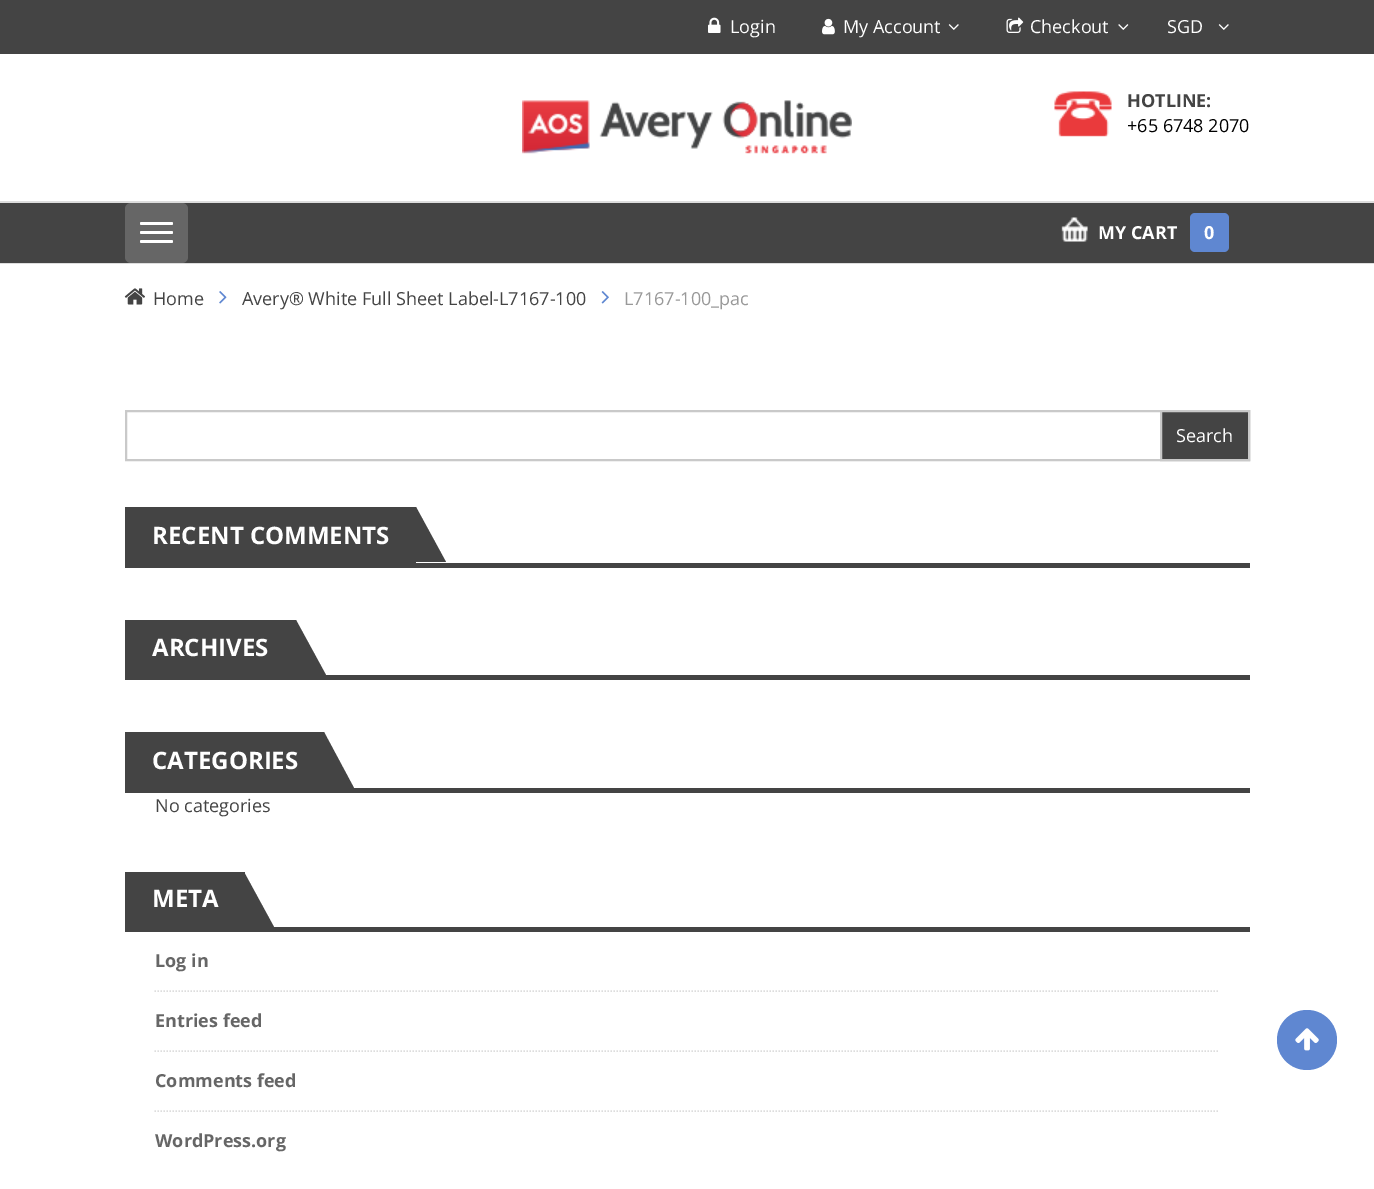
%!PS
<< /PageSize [1374 1189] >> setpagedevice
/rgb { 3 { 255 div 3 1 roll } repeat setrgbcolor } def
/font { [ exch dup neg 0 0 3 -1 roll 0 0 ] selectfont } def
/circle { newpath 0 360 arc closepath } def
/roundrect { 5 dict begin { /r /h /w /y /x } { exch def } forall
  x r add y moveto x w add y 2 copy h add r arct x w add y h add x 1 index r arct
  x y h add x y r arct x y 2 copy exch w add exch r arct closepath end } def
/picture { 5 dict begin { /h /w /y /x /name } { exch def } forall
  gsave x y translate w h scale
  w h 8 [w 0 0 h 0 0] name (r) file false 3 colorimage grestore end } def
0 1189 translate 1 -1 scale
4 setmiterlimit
255 255 255 rgb
0 0 1374 1189 rectfill
68 68 68 rgb
0 0 1374 54 rectfill
(img/1.rgb) 708 17 13 16 picture
(img/2.rgb) 822 18 13 17 picture
(img/3.rgb) 948 24 11 6 picture
(img/4.rgb) 1006 17 18 16 picture
(img/5.rgb) 1118 24 11 6 picture
(img/3.rgb) 1218 24 11 6 picture
(img/6.rgb) 522 100 330 54 picture
(img/7.rgb) 1054 91 58 46 picture
[
  [0 203 1374 60 68 68 68]
  [0 201 1374 2 221 221 221]
  [0 263 1374 1 221 221 221]
] { aload pop rgb rectfill } forall
102 102 102 rgb
125 203 63 60 6 roundrect fill
255 255 255 rgb
140 222 33 3 1.5 roundrect fill
140 231 33 3 1.5 roundrect fill
140 240 33 3 1.5 roundrect fill
(img/8.rgb) 1061 217 27 25 picture
95 135 209 rgb
1190 213 39 39 5 roundrect fill
(img/9.rgb) 124 288 21 17 picture
(img/10.rgb) 219 291 8 13 picture
(img/11.rgb) 601 291 8 13 picture
201 201 201 rgb
2 setlinewidth
126 411 1123 49 rectstroke
68 68 68 rgb
1161 411 moveto 1249 411 lineto 1249 460 lineto 1161 460 lineto closepath gsave fill grestore
201 201 201 rgb
stroke
68 68 68 rgb
125 563 1125 5 rectfill
125 507 291 56 rectfill
446 562 moveto 416 562 lineto 416 507 lineto closepath fill
125 675 1125 5 rectfill
125 620 171 55 rectfill
326 675 moveto 296 675 lineto 296 620 lineto closepath fill
125 788 1125 5 rectfill
125 732 199 56 rectfill
354 788 moveto 324 788 lineto 324 732 lineto closepath fill
125 927 1125 5 rectfill
125 872 120 55 rectfill
274 927 moveto 244 927 lineto 244 872 lineto closepath fill
221 221 221 rgb
1.5 setlinewidth
[1.5 1.5] 0 setdash
154.5 991 moveto 1219.5 991 lineto stroke
154.5 1051 moveto 1219.5 1051 lineto stroke
154.5 1111 moveto 1219.5 1111 lineto stroke
95 135 209 rgb
1307 1040 30 circle fill
(img/12.rgb) 1295 1028 24 23 picture
/OpenSans-Regular 18 font
255 255 255 rgb
[
  [(Login) 730 33]
  [(My Account) 843 33]
  [(Checkout) 1030 33]
  [(SGD) 1167 33]
] { aload pop moveto show } forall
/OpenSans-Bold 18 font
68 68 68 rgb
1127 107 moveto (HOTLINE:) show
/OpenSans-Regular 18 font
0 0 0 rgb
1127 132 moveto (+65 6748 2070) show
/OpenSans-Bold 18 font
255 255 255 rgb
1098 239 moveto (MY CART) show
1204 239 moveto (0) show
/OpenSans-Regular 18 font
68 68 68 rgb
153 305 moveto (Home) show
242 305 moveto (Avery® White Full Sheet Label-L7167-100) show
153 153 153 rgb
624 305 moveto (L7167-100_pac) show
255 255 255 rgb
1176 442 moveto (Search) show
/OpenSans-Bold 24 font
[
  [(RECENT COMMENTS) 152 544]
  [(ARCHIVES) 152 656]
  [(CATEGORIES) 152 769]
] { aload pop moveto show } forall
/OpenSans-Regular 18 font
68 68 68 rgb
155 812 moveto (No categories) show
/OpenSans-Bold 24 font
255 255 255 rgb
152 907 moveto (META) show
/OpenSans-Bold 18 font
102 102 102 rgb
[
  [(Log in) 155 967]
  [(Entries feed) 155 1027]
  [(Comments feed) 155 1087]
  [(WordPress.org) 155 1147]
] { aload pop moveto show } forall
showpage
